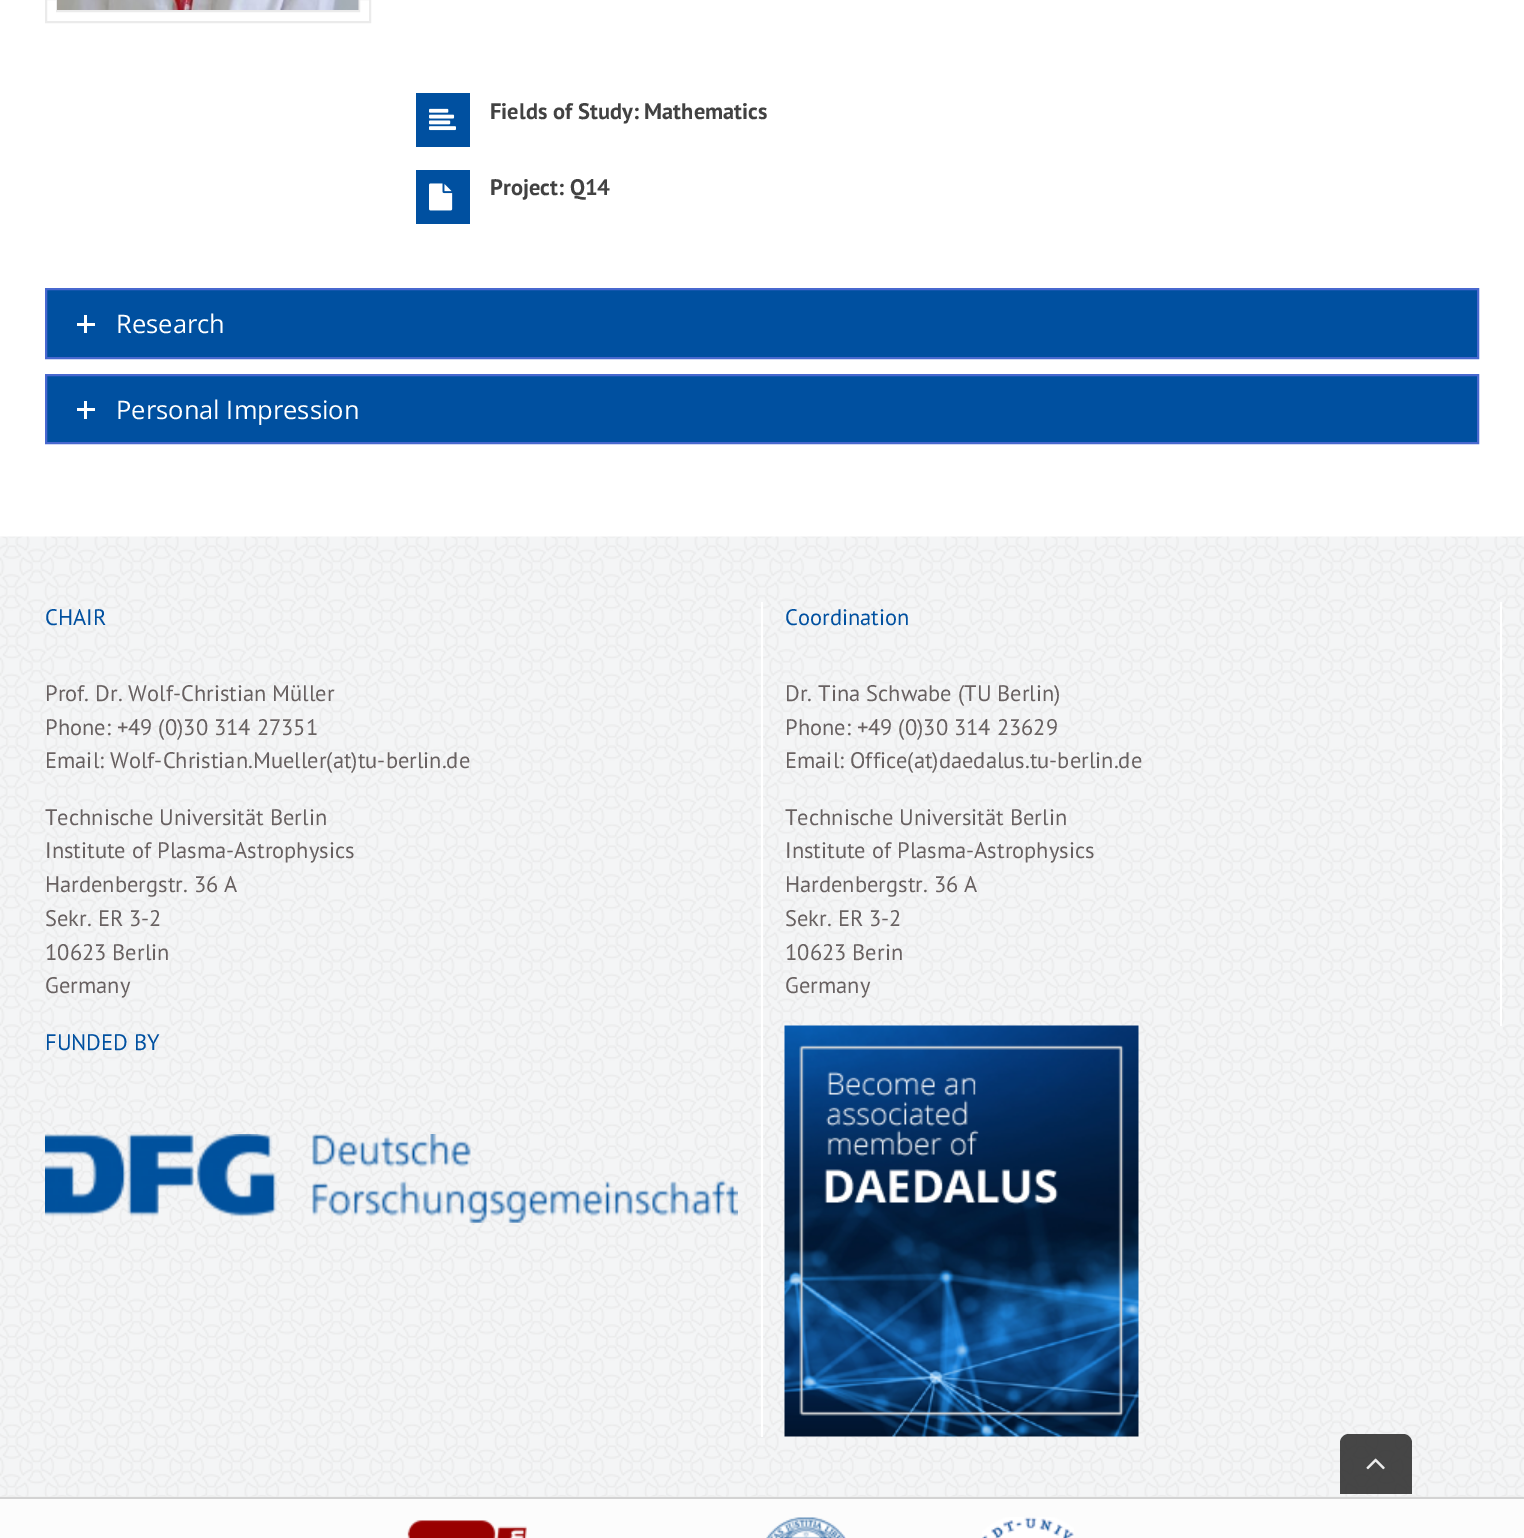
%!PS
<< /PageSize [1524 1538] /PageUsesTransparency true >> setpagedevice
/rgb { 3 { 255 div 3 1 roll } repeat setrgbcolor } def
/font { [ exch dup neg 0 0 3 -1 roll 0 0 ] selectfont } def
/alpha { dup .setfillconstantalpha .setstrokeconstantalpha } def
/picture { 5 dict begin { /h /w /y /x /name } { exch def } forall
  gsave x y translate w h scale
  w h 8 [w 0 0 h 0 0] name (r) file false 3 colorimage grestore end } def
0 .pushpdf14devicefilter
0 1538 translate 1 -1 scale
4 setmiterlimit
255 255 255 rgb
0 0 1524 1538 rectfill
235 235 235 rgb
2 setlinewidth
46 -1 324 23 rectstroke
57 -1 302 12 rectstroke
(img/1.rgb) 57 0 302 10 picture
0 80 160 rgb
416 93 54 54 rectfill
(img/2.rgb) 429 108 27 23 picture
416 170 54 54 rectfill
(img/3.rgb) 429 183 24 28 picture
46 289 moveto 1478 289 lineto 1478 358 lineto 46 358 lineto closepath gsave fill grestore
72 104 207 rgb
stroke
255 255 255 rgb
77 323 18 3 rectfill
84 315 3 18 rectfill
0 80 160 rgb
46 375 moveto 1478 375 lineto 1478 443 lineto 46 443 lineto closepath gsave fill grestore
72 104 207 rgb
stroke
[
  [77 408 18 3 255 255 255]
  [84 401 3 18 255 255 255]
  [0 1496 1524 1 237 237 237]
] { aload pop rgb rectfill } forall
(img/4.rgb) 0 536 1524 961 picture
255 255 255 rgb
761 602 2 835 rectfill
1500 602 2 424 rectfill
(img/5.rgb) 45 1134 693 89 picture
(img/6.rgb) 784 1025 355 412 picture
252 252 252 rgb
0 1499 1524 39 rectfill
211 211 211 rgb
0 1497 1524 2 rectfill
(img/7.rgb) 407 1520 120 18 picture
(img/8.rgb) 766 1517 80 21 picture
(img/9.rgb) 982 1517 92 21 picture
0.9 alpha
51 51 51 rgb
1349 1434 moveto 1403 1434 lineto 1408 1434 1412 1438 1412 1443 curveto 1412 1494 lineto 1340 1494 lineto 1340 1443 lineto 1340 1438 1344 1434 1349 1434 curveto closepath fill
1 alpha
(img/10.rgb) 1366 1458 19 12 picture
/PTSans-Bold 22.5 font
66 66 66 rgb
490 119 moveto (Fields of Study: Mathematics) show
490 195 moveto (Project: Q14) show
/OpenSans-Regular 25.5 font
255 255 255 rgb
116 333 moveto (Research) show
116 419 moveto (Personal Impression) show
/PTSans-Regular 22.5 font
0 80 160 rgb
45 625 moveto (CHAIR) show
104 97 97 rgb
[
  [(Prof. Dr. Wolf-Christian Müller) 45 701]
  [(Phone: +49 \(0\)30 314 27351) 45 735]
  [(Email: Wolf-Christian.Mueller\(at\)tu-berlin.de) 45 768]
  [(Technische Universität Berlin) 45 825]
  [(Institute of Plasma-Astrophysics) 45 858]
  [(Hardenbergstr. 36 A) 45 892]
  [(Sekr. ER 3-2) 45 926]
  [(10623 Berlin) 45 960]
  [(Germany) 45 993]
] { aload pop moveto show } forall
0 80 160 rgb
785 625 moveto (Coordination) show
104 97 97 rgb
[
  [(Dr. Tina Schwabe \(TU Berlin\)) 785 701]
  [(Phone: +49 \(0\)30 314 23629) 785 735]
  [(Email: Office\(at\)daedalus.tu-berlin.de) 785 768]
  [(Technische Universität Berlin) 785 825]
  [(Institute of Plasma-Astrophysics) 785 858]
  [(Hardenbergstr. 36 A) 785 892]
  [(Sekr. ER 3-2) 785 926]
  [(10623 Berin) 785 960]
  [(Germany) 785 993]
] { aload pop moveto show } forall
0 80 160 rgb
45 1050 moveto (FUNDED BY) show
.poppdf14devicefilter showpage
